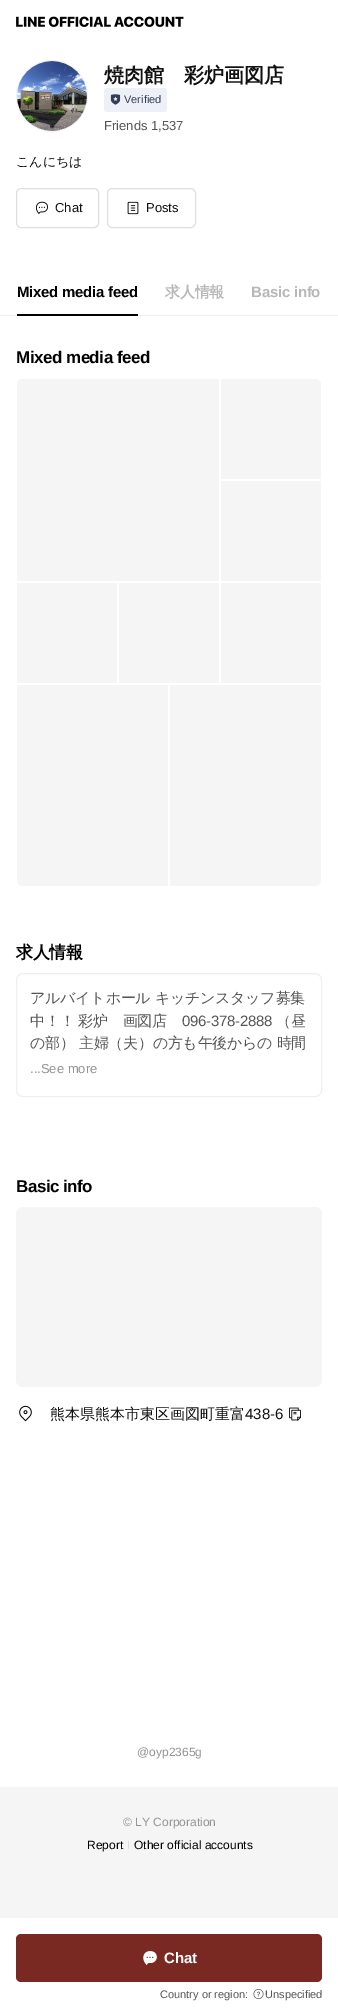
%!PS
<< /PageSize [338 2012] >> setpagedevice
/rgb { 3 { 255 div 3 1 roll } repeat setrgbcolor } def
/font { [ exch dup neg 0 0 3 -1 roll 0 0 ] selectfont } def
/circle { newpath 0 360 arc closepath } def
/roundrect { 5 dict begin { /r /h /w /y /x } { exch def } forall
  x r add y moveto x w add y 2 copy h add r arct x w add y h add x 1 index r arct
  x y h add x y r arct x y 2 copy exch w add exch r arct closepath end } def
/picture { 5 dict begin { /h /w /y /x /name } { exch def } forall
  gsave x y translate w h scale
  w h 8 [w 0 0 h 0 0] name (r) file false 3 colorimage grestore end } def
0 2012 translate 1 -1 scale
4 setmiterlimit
255 255 255 rgb
0 0 338 2012 rectfill
(img/1.rgb) 16 16 168 11 picture
242 242 242 rgb
52 96 35.5 circle stroke
(img/2.rgb) 17 61 70 70 picture
237 240 247 rgb
104 88 63 24 3 roundrect fill
(img/3.rgb) 110 94 11 11 picture
223 223 223 rgb
16.5 188.5 82 39 4.5 roundrect stroke
(img/4.rgb) 35 201 13 13 picture
107.5 188.5 88 39 4.5 roundrect stroke
(img/5.rgb) 127 201 12 14 picture
239 239 239 rgb
0 315 338 1 rectfill
0 0 0 rgb
17 314 121 2 rectfill
245 245 245 rgb
23 379 moveto 219 379 lineto 219 581 lineto 17 581 lineto 17 385 lineto 17 381.5 19.5 379 23 379 curveto closepath fill
221 379 moveto 315 379 lineto 318.5 379 321 381.5 321 385 curveto 321 479 lineto 221 479 lineto closepath fill
[
  [221 481 100 100 245 245 245]
  [17 583 100 100 245 245 245]
  [119 583 100 100 245 245 245]
  [221 583 100 100 245 245 245]
] { aload pop rgb rectfill } forall
17 685 moveto 168 685 lineto 168 886 lineto 23 886 lineto 19.5 886 17 883.5 17 880 curveto closepath fill
170 685 moveto 321 685 lineto 321 880 lineto 321 883.5 318.5 886 315 886 curveto 170 886 lineto closepath fill
239 239 239 rgb
16.5 973.5 305 123 6.5 roundrect stroke
245 245 245 rgb
16 1207 306 180 7 roundrect fill
(img/6.rgb) 19 1405 13 17 picture
(img/7.rgb) 289 1407 12 14 picture
0 1787 338 131 rectfill
221 221 221 rgb
128 1841 1 8 rectfill
121 40 34 rgb
16 1934 306 48 5 roundrect fill
(img/8.rgb) 143 1951 14 14 picture
(img/9.rgb) 253 1989 11 10 picture
/WenQuanYiZenHei-Bold 20 font
17 17 17 rgb
104 82 moveto (焼肉館　彩炉画図店) show
/LiberationSans-Regular 11 font
52 61 87 rgb
124 103 moveto (Verified) show
/LiberationSans-Regular 13 font
85 85 85 rgb
104 130 moveto (Friends 1,537) show
/WenQuanYiZenHei-Medium 13 font
17 17 17 rgb
16 166 moveto (こんにちは) show
/LiberationSans-Regular 13 font
55 212 moveto (Chat) show
146 212 moveto (Posts) show
/LiberationSans-Bold 15 font
0 0 0 rgb
17 297 moveto -0.25 0 (Mixed media feed) ashow
/WenQuanYiZenHei-Bold 15 font
183 183 183 rgb
165 297 moveto -0.25 0 (求人情報) ashow
/LiberationSans-Bold 15 font
251 297 moveto -0.25 0 (Basic info) ashow
/LiberationSans-Bold 17 font
0 0 0 rgb
16 363 moveto -0.5 0 (Mixed media feed) ashow
/WenQuanYiZenHei-Bold 17 font
16 958 moveto -0.5 0 (求人情報) ashow
/WenQuanYiZenHei-Medium 15 font
85 85 85 rgb
30 1003 moveto -0.25 0 (アルバイトホール キッチンスタッフ募集) ashow
30 1026 moveto -0.25 0 (中！！ 彩炉　画図店) ashow
/LiberationSans-Regular 15 font
182 1026 moveto -0.25 0 (096-378-2888) ashow
/WenQuanYiZenHei-Medium 15 font
276 1026 moveto -0.25 0 (（昼) ashow
30 1048 moveto -0.25 0 (の部） 主婦（夫）の方も午後からの 時間) ashow
/LiberationSans-Regular 13 font
148 148 148 rgb
30 1073 moveto (...See more) show
/LiberationSans-Bold 17 font
0 0 0 rgb
16 1192 moveto -0.5 0 (Basic info) ashow
/WenQuanYiZenHei-Medium 15 font
17 17 17 rgb
50 1419 moveto (熊本県熊本市東区画図町重富) show
/LiberationSans-Regular 15 font
245 1419 moveto (438-6) show
/LiberationSans-Regular 12 font
148 148 148 rgb
137 1756 moveto (@oyp2365g) show
123 1826 moveto (© LY Corporation) show
0 0 0 rgb
87 1849 moveto (Report) show
134 1849 moveto (Other official accounts) show
/LiberationSans-Bold 15 font
255 255 255 rgb
164 1963 moveto (Chat) show
/LiberationSans-Regular 11 font
85 85 85 rgb
160 1998 moveto (Country or region:) show
265 1998 moveto (Unspecified) show
showpage
